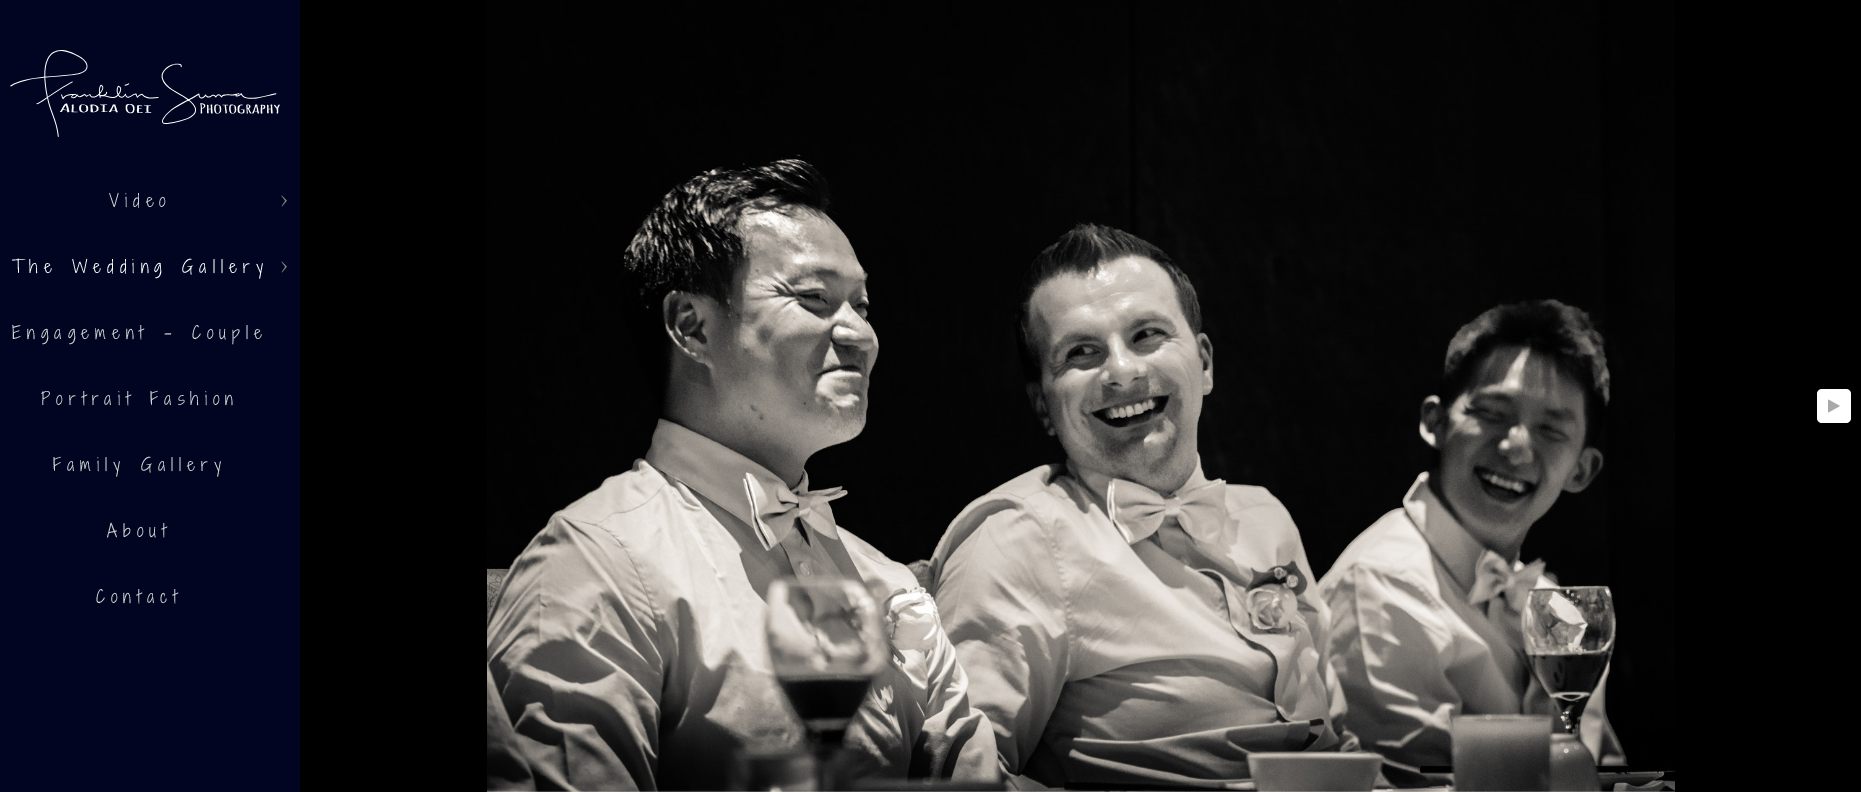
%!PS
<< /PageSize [1861 792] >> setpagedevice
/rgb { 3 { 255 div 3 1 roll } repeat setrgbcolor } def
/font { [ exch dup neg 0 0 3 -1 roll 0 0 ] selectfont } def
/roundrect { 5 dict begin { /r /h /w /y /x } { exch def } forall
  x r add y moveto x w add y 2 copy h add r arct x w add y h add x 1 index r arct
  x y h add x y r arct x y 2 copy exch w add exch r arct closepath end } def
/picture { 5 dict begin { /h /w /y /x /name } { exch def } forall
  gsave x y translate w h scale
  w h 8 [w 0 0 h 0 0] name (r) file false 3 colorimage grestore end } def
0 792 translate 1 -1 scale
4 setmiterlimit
0 0 0 rgb
0 0 1861 792 rectfill
1 5 33 rgb
0 0 300 792 rectfill
(img/1.rgb) 10 50 270 87 picture
(img/2.rgb) 281 195 6 12 picture
(img/2.rgb) 281 261 6 12 picture
(img/3.rgb) 487 0 1188 792 picture
255 255 255 rgb
1817 389 34 34 5 roundrect fill
(img/4.rgb) 1828 399 12 14 picture
/ShadowsIntoLightTwo-Light 17 font
211 211 211 rgb
109 207 moveto 6 0 (Video) ashow
255 255 255 rgb
12 273 moveto 6 0 (The Wedding Gallery) ashow
211 211 211 rgb
12 339 moveto 6 0 (Engagement - Couple) ashow
41 405 moveto 6 0 (Portrait Fashion) ashow
53 471 moveto 6 0 (Family Gallery) ashow
107 537 moveto 6 0 (About) ashow
96 603 moveto 6 0 (Contact) ashow
showpage
